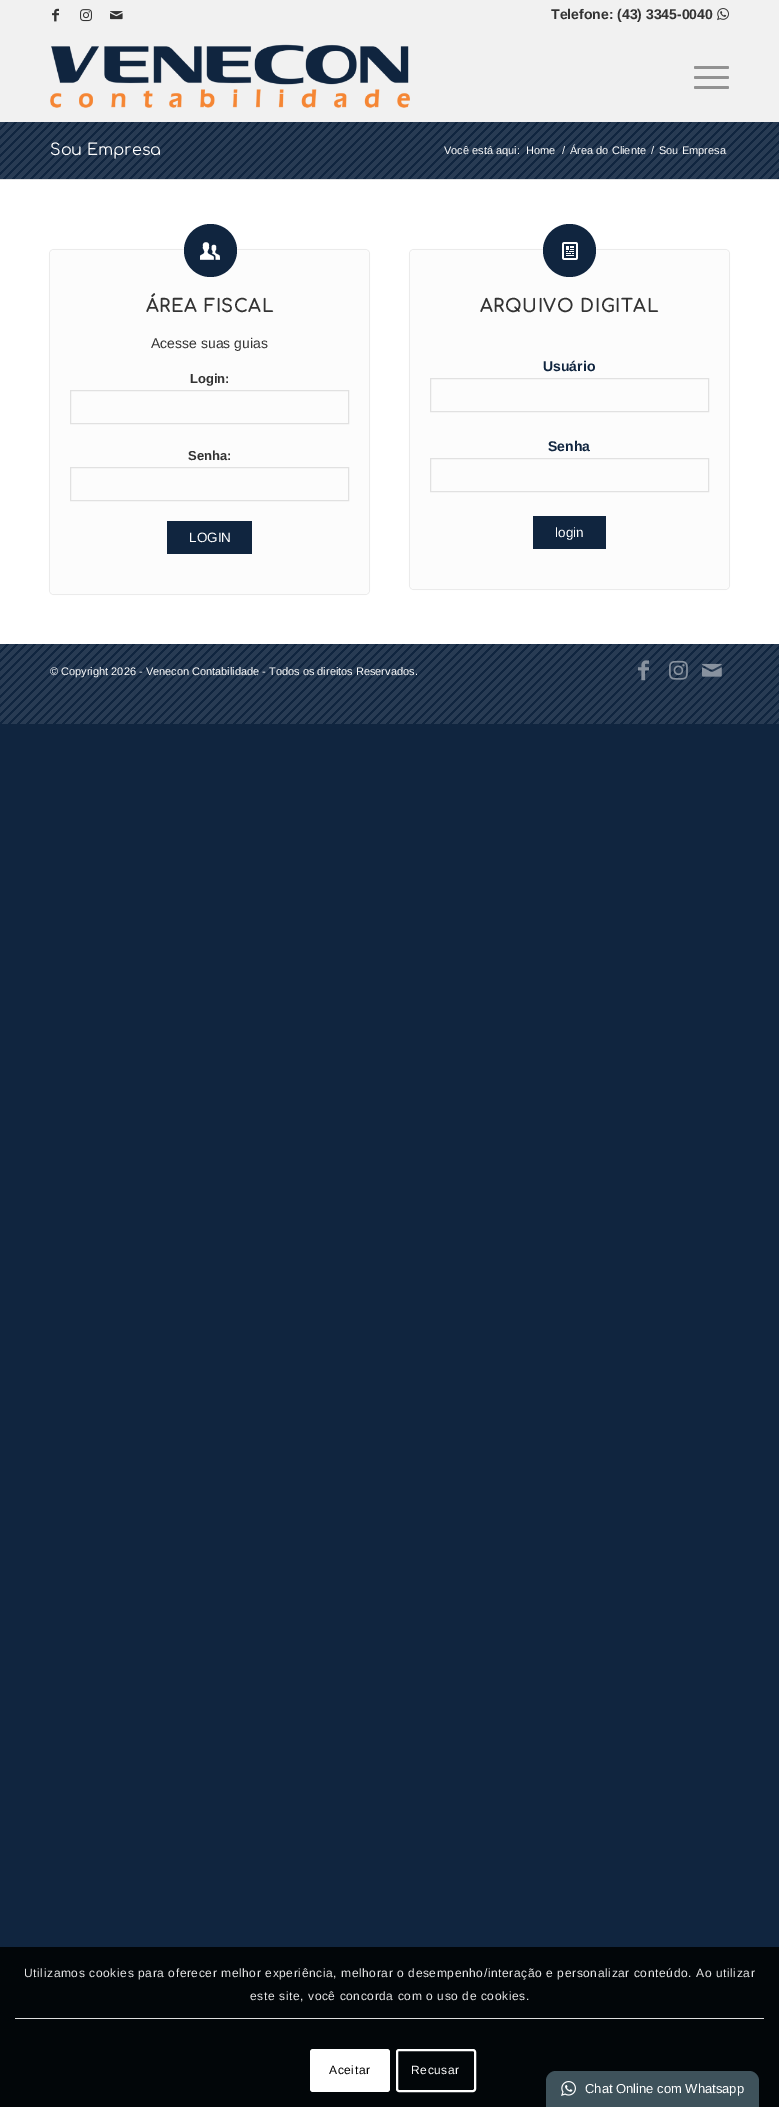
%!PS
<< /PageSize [779 2107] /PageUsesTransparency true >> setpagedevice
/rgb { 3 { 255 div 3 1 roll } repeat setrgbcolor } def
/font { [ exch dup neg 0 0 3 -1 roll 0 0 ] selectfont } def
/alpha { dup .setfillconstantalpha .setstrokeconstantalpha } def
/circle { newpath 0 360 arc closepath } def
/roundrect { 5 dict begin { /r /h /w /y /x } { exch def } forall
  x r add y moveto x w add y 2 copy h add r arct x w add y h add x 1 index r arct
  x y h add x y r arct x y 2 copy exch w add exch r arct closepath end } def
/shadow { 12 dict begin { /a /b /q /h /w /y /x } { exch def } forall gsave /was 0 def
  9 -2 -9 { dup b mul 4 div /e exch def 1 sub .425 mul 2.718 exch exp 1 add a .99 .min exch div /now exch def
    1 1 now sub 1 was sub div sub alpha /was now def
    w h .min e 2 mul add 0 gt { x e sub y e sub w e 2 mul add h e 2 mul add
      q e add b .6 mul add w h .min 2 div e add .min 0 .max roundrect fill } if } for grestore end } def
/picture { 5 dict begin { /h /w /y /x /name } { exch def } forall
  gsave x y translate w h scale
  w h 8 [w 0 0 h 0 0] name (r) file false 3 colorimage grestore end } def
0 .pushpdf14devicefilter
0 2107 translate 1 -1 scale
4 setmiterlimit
16 37 63 rgb
0 0 779 2107 rectfill
241 241 241 rgb
0 0 779 122 rectfill
(img/1.rgb) 52 8 7 14 picture
(img/2.rgb) 80 9 12 13 picture
(img/3.rgb) 110 11 13 9 picture
(img/4.rgb) 717 8 12 13 picture
(img/5.rgb) 50 44 360 64 picture
146 146 146 rgb
694 76 35 3 1.5 roundrect fill
694 66 35 3 1.5 roundrect fill
694 86 35 3 1.5 roundrect fill
(img/6.rgb) 0 122 779 57 picture
255 255 255 rgb
0 180 779 464 rectfill
225 225 225 rgb
0 179 779 1 rectfill
0 0 0 rgb
50 250 319 344 3 0.5 0.3 shadow
252 252 252 rgb
50 250 319 344 3 roundrect fill
16 37 63 rgb
210.5 250.5 26.5 circle fill
(img/7.rgb) 200 242 20 18 picture
225 225 225 rgb
70.5 390.5 278 33 rectstroke
70.5 467.5 278 33 rectstroke
16 37 63 rgb
167 521 85 33 rectfill
0 0 0 rgb
410 250 319 339 3 0.5 0.3 shadow
252 252 252 rgb
410 250 319 339 3 roundrect fill
16 37 63 rgb
569.5 250.5 26.5 circle fill
(img/8.rgb) 562 242 16 18 picture
225 225 225 rgb
430.5 378.5 278 33 rectstroke
430.5 458.5 278 33 rectstroke
16 37 63 rgb
533 516 73 33 rectfill
(img/9.rgb) 0 644 779 80 picture
(img/10.rgb) 638 660 11 21 picture
(img/11.rgb) 669 660 19 20 picture
(img/12.rgb) 702 663 20 14 picture
2 6 9 rgb
0 1947 779 160 rectfill
221 221 221 rgb
15 2018 749 1 rectfill
255 255 255 rgb
310 2049 80 43 3 roundrect fill
2 setlinewidth
397 2050 78 41 2 roundrect stroke
62 82 91 rgb
556 2071 moveto 749 2071 lineto 754.5 2071 759 2075.5 759 2081 curveto 759 2107 lineto 546 2107 lineto 546 2081 lineto 546 2075.5 550.5 2071 556 2071 curveto closepath fill
(img/13.rgb) 561 2081 15 15 picture
/LiberationSans-Bold 14 font
51 51 51 rgb
551 19 moveto (Telefone: \(43\) 3345-0040) show
/Comfortaa-Regular 16 font
255 255 255 rgb
50 155 moveto (Sou Empresa) show
/LiberationSans-Regular 11 font
[
  [(Você está aqui:) 444 154]
  [(Home) 526 154]
  [(/) 562 154]
  [(Área do Cliente) 570 154]
  [(/) 651 154]
  [(Sou Empresa) 659 154]
] { aload pop moveto show } forall
/Comfortaa-Bold 17.5 font
51 51 51 rgb
146 312 moveto 1 0 (ÁREA FISCAL) ashow
/LiberationSans-Regular 14 font
151 348 moveto (Acesse suas guias) show
/LiberationSans-Bold 13 font
190 383 moveto (Login:) show
188 460 moveto (Senha:) show
/LiberationSans-Regular 13.5 font
255 255 255 rgb
189 542 moveto (LOGIN) show
/Comfortaa-Bold 17.5 font
51 51 51 rgb
480 312 moveto 1 0 (ARQUIVO DIGITAL) ashow
/LiberationSans-Bold 14 font
16 37 63 rgb
543 371 moveto (Usuário) show
548 451 moveto (Senha) show
/LiberationSans-Regular 13.5 font
255 255 255 rgb
555 537 moveto (login) show
/LiberationSans-Regular 11 font
50 675 moveto (© Copyright 2026 - Venecon Contabilidade - Todos os direitos Reservados.) show
/LiberationSans-Regular 12 font
230 230 230 rgb
24 1977 moveto 0.6 0 (Utilizamos cookies para oferecer melhor experiência, melhorar o desempenho/interação e personalizar conteúdo. Ao utilizar) ashow
250 2000 moveto 0.6 0 (este site, você concorda com o uso de cookies.) ashow
0 0 0 rgb
329 2074 moveto 0.6 0 (Aceitar) ashow
255 255 255 rgb
411 2074 moveto 0.6 0 (Recusar) ashow
/LiberationSans-Regular 13 font
585 2093 moveto (Chat Online com Whatsapp) show
.poppdf14devicefilter showpage
